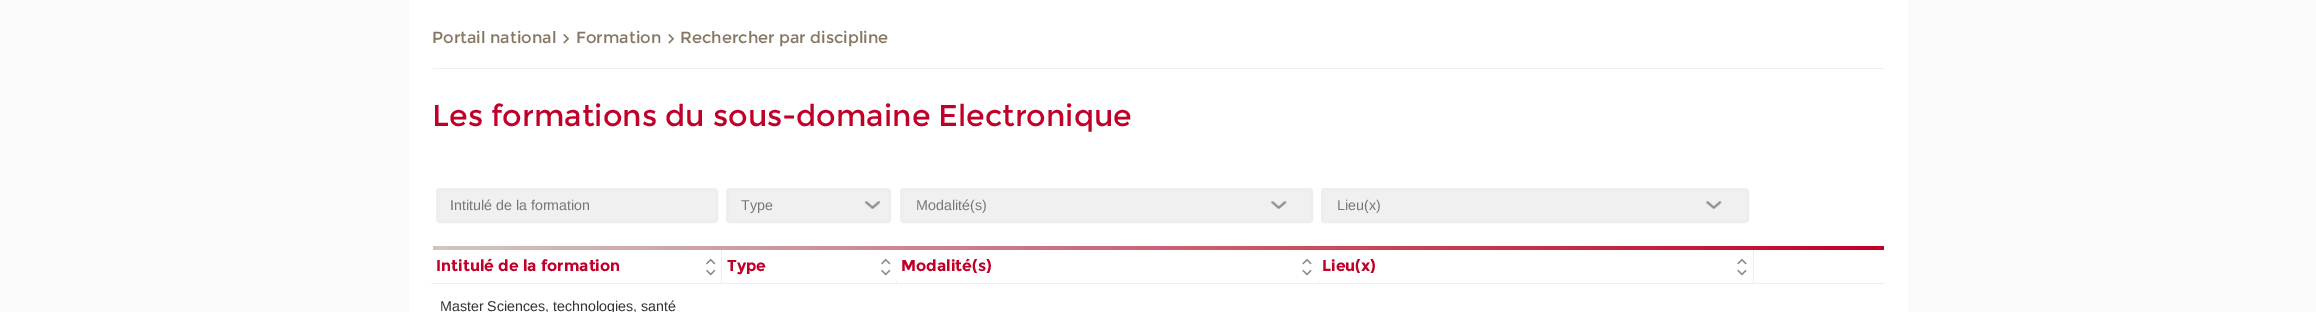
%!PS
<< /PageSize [2316 312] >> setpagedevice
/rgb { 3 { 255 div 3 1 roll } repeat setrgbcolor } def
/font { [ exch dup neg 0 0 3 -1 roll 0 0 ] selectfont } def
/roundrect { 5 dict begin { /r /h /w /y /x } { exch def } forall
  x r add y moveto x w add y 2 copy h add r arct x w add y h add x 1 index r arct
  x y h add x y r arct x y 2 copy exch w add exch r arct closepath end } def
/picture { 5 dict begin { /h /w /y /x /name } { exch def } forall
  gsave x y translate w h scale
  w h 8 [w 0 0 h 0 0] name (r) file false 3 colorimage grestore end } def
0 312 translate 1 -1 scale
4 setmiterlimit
250 250 250 rgb
0 0 2316 312 rectfill
255 255 255 rgb
409 0 1499 312 rectfill
238 238 238 rgb
433 68 1451 1 rectfill
(img/1.rgb) 563 34 7 10 picture
(img/1.rgb) 668 34 7 10 picture
240 240 240 rgb
437.5 189.5 279 32 2.5 roundrect gsave fill grestore
238 238 238 rgb
3 setlinewidth
stroke
240 240 240 rgb
726 188 165 35 4 roundrect fill
(img/2.rgb) 865 201 15 8 picture
238 238 238 rgb
727.5 189.5 162 32 2.5 roundrect stroke
240 240 240 rgb
900 188 413 35 4 roundrect fill
(img/3.rgb) 1271 201 16 8 picture
238 238 238 rgb
901.5 189.5 410 32 2.5 roundrect stroke
240 240 240 rgb
1321 188 428 35 4 roundrect fill
(img/3.rgb) 1706 201 16 8 picture
238 238 238 rgb
1322.5 189.5 425 32 2.5 roundrect stroke
[
  [1753 283 132 1 238 238 238]
  [1753 245 1 39 238 238 238]
  [1318 283 436 1 238 238 238]
  [1318 245 1 39 238 238 238]
  [896 283 423 1 238 238 238]
  [896 245 1 39 238 238 238]
  [721 283 177 1 238 238 238]
  [721 245 1 39 238 238 238]
] { aload pop rgb rectfill } forall
gsave 433 246 moveto 1884 246 lineto 1884 250 lineto 433 250 lineto closepath clip newpath
<< /ShadingType 2 /ColorSpace /DeviceRGB /Coords [433 248 1884 248] /Extend [true true] /Function << /FunctionType 2 /Domain [0 1] /C0 [0.812 0.784 0.753] /C1 [0.757 0 0.165] /N 1 >> >> shfill grestore
431 283 292 1 rectfill
(img/4.rgb) 706 258 10 7 picture
(img/5.rgb) 706 269 10 7 picture
(img/4.rgb) 881 258 10 7 picture
(img/5.rgb) 881 269 10 7 picture
255 255 255 rgb
896 250 1 31 rectfill
(img/6.rgb) 1302 258 10 7 picture
(img/7.rgb) 1302 269 10 7 picture
1318 250 1 31 rectfill
(img/6.rgb) 1737 258 10 7 picture
(img/7.rgb) 1737 269 10 7 picture
/Montserrat-Regular 16.25 font
133 119 97 rgb
[
  [(Portail national) 432 43]
  [(Formation) 576 43]
  [(Rechercher par discipline) 680 43]
] { aload pop moveto show } forall
/Montserrat-Regular 30 font
193 0 42 rgb
432 126 moveto (Les formations du sous-domaine Electronique) show
/LiberationSans-Regular 14.25 font
119 119 119 rgb
[
  [(Intitulé de la formation) 450 210]
  [(Type) 741 210]
  [(Modalité\(s\)) 916 210]
  [(Lieu\(x\)) 1337 210]
] { aload pop moveto show } forall
/Montserrat-Bold 15.75 font
193 0 42 rgb
[
  [(Intitulé de la formation) 436 271]
  [(Type) 727 271]
  [(Modalité\(s\)) 901 271]
  [(Lieu\(x\)) 1322 271]
] { aload pop moveto show } forall
/LiberationSans-Regular 14.25 font
51 51 51 rgb
440 311 moveto (Master Sciences, technologies, santé) show
showpage
